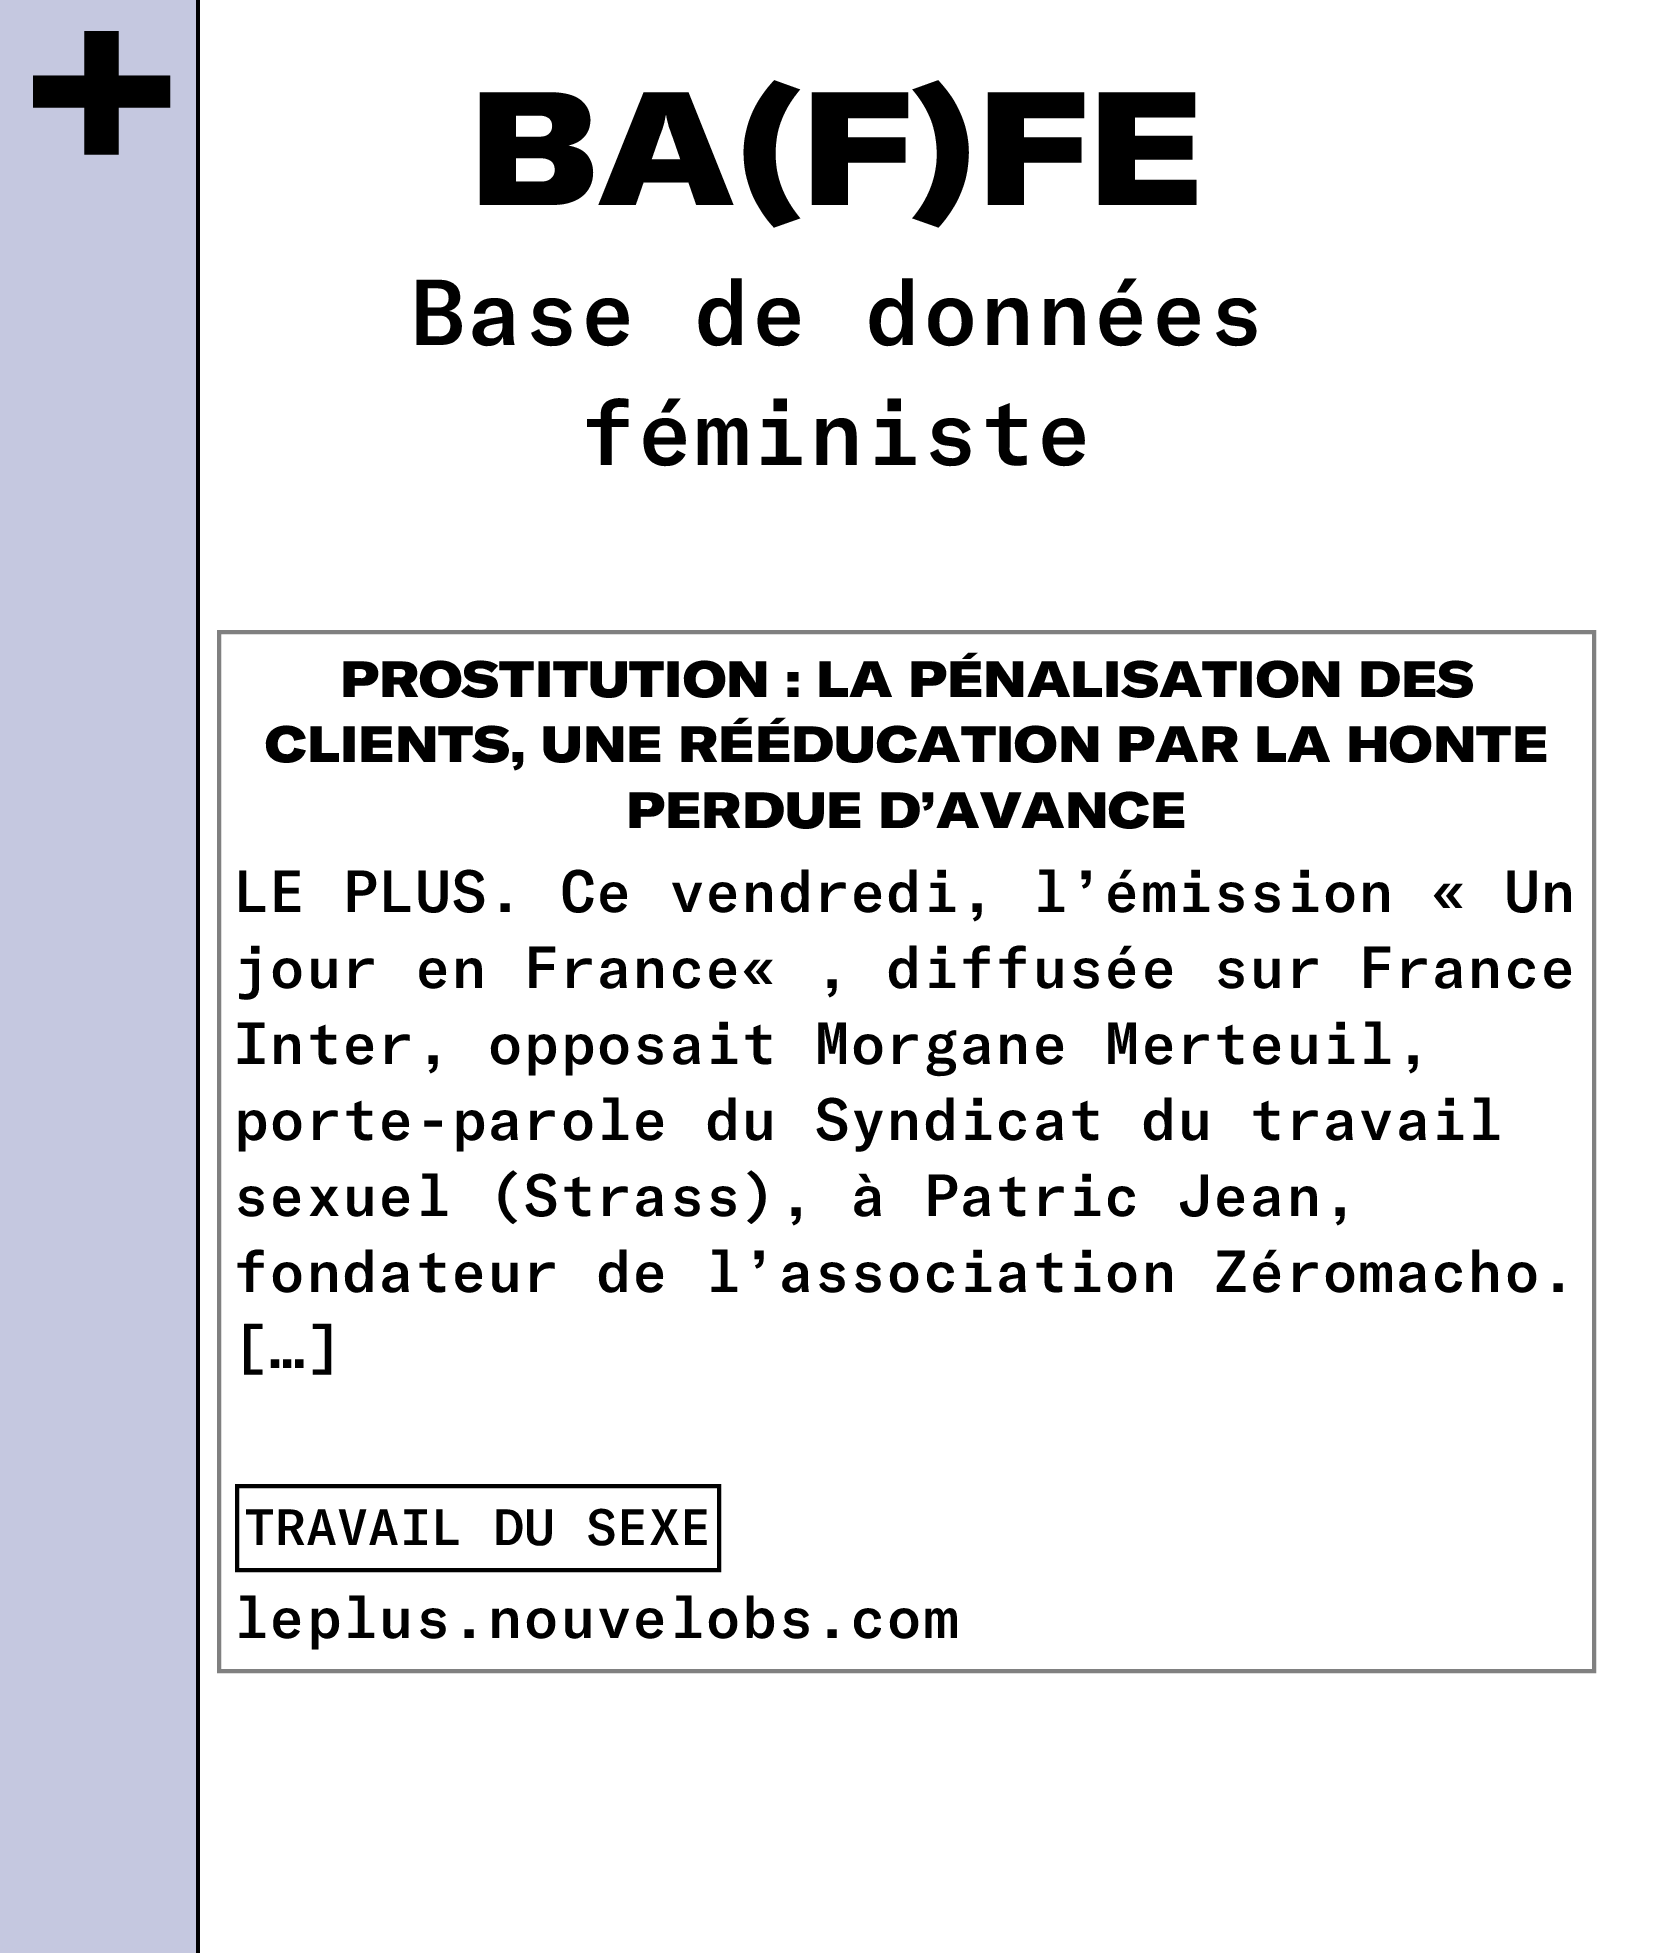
%!PS
<< /PageSize [1673 1953] >> setpagedevice
/rgb { 3 { 255 div 3 1 roll } repeat setrgbcolor } def
/font { [ exch dup neg 0 0 3 -1 roll 0 0 ] selectfont } def
0 1953 translate 1 -1 scale
4 setmiterlimit
255 255 255 rgb
0 0 1673 1953 rectfill
197 200 224 rgb
0 0 196 1953 rectfill
0 0 0 rgb
196 0 4 1953 rectfill
128 128 128 rgb
4 setlinewidth
219 632 1375 1039 rectstroke
0 0 0 rgb
237 1486 482 84 rectstroke
/GTAmerica-Black 251 font
23 174 moveto (+) show
/GTAmerica-Black 159 font
469 205 moveto (BA\(F\)FE) show
/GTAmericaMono-Medium 92 font
409 345 moveto (Base de données) show
580 465 moveto (féministe) show
/GTAmerica-Black 50.2 font
[
  [(PROSTITUTION : LA PÉNALISATION DES) 340 697]
  [(CLIENTS, UNE RÉÉDUCATION PAR LA HONTE) 265 762]
  [(PERDUE D’AVANCE) 626 828]
] { aload pop moveto show } forall
/GTAmericaMono-Medium 58.55 font
[
  [(LE PLUS. Ce vendredi, l’émission « Un) 233 912]
  [(jour en France« , diffusée sur France) 233 988]
  [(Inter, opposait Morgane Merteuil,) 233 1064]
  [(porte-parole du Syndicat du travail) 233 1140]
  [(sexuel \(Strass\), à Patric Jean,) 233 1216]
  [(fondateur de l’association Zéromacho.) 233 1292]
  [([…]) 233 1368]
] { aload pop moveto show } forall
/GTAmericaMono-Medium 50.2 font
244 1545 moveto (TRAVAIL DU SEXE) show
/GTAmericaMono-Medium 58.55 font
233 1638 moveto (leplus.nouvelobs.com) show
showpage
